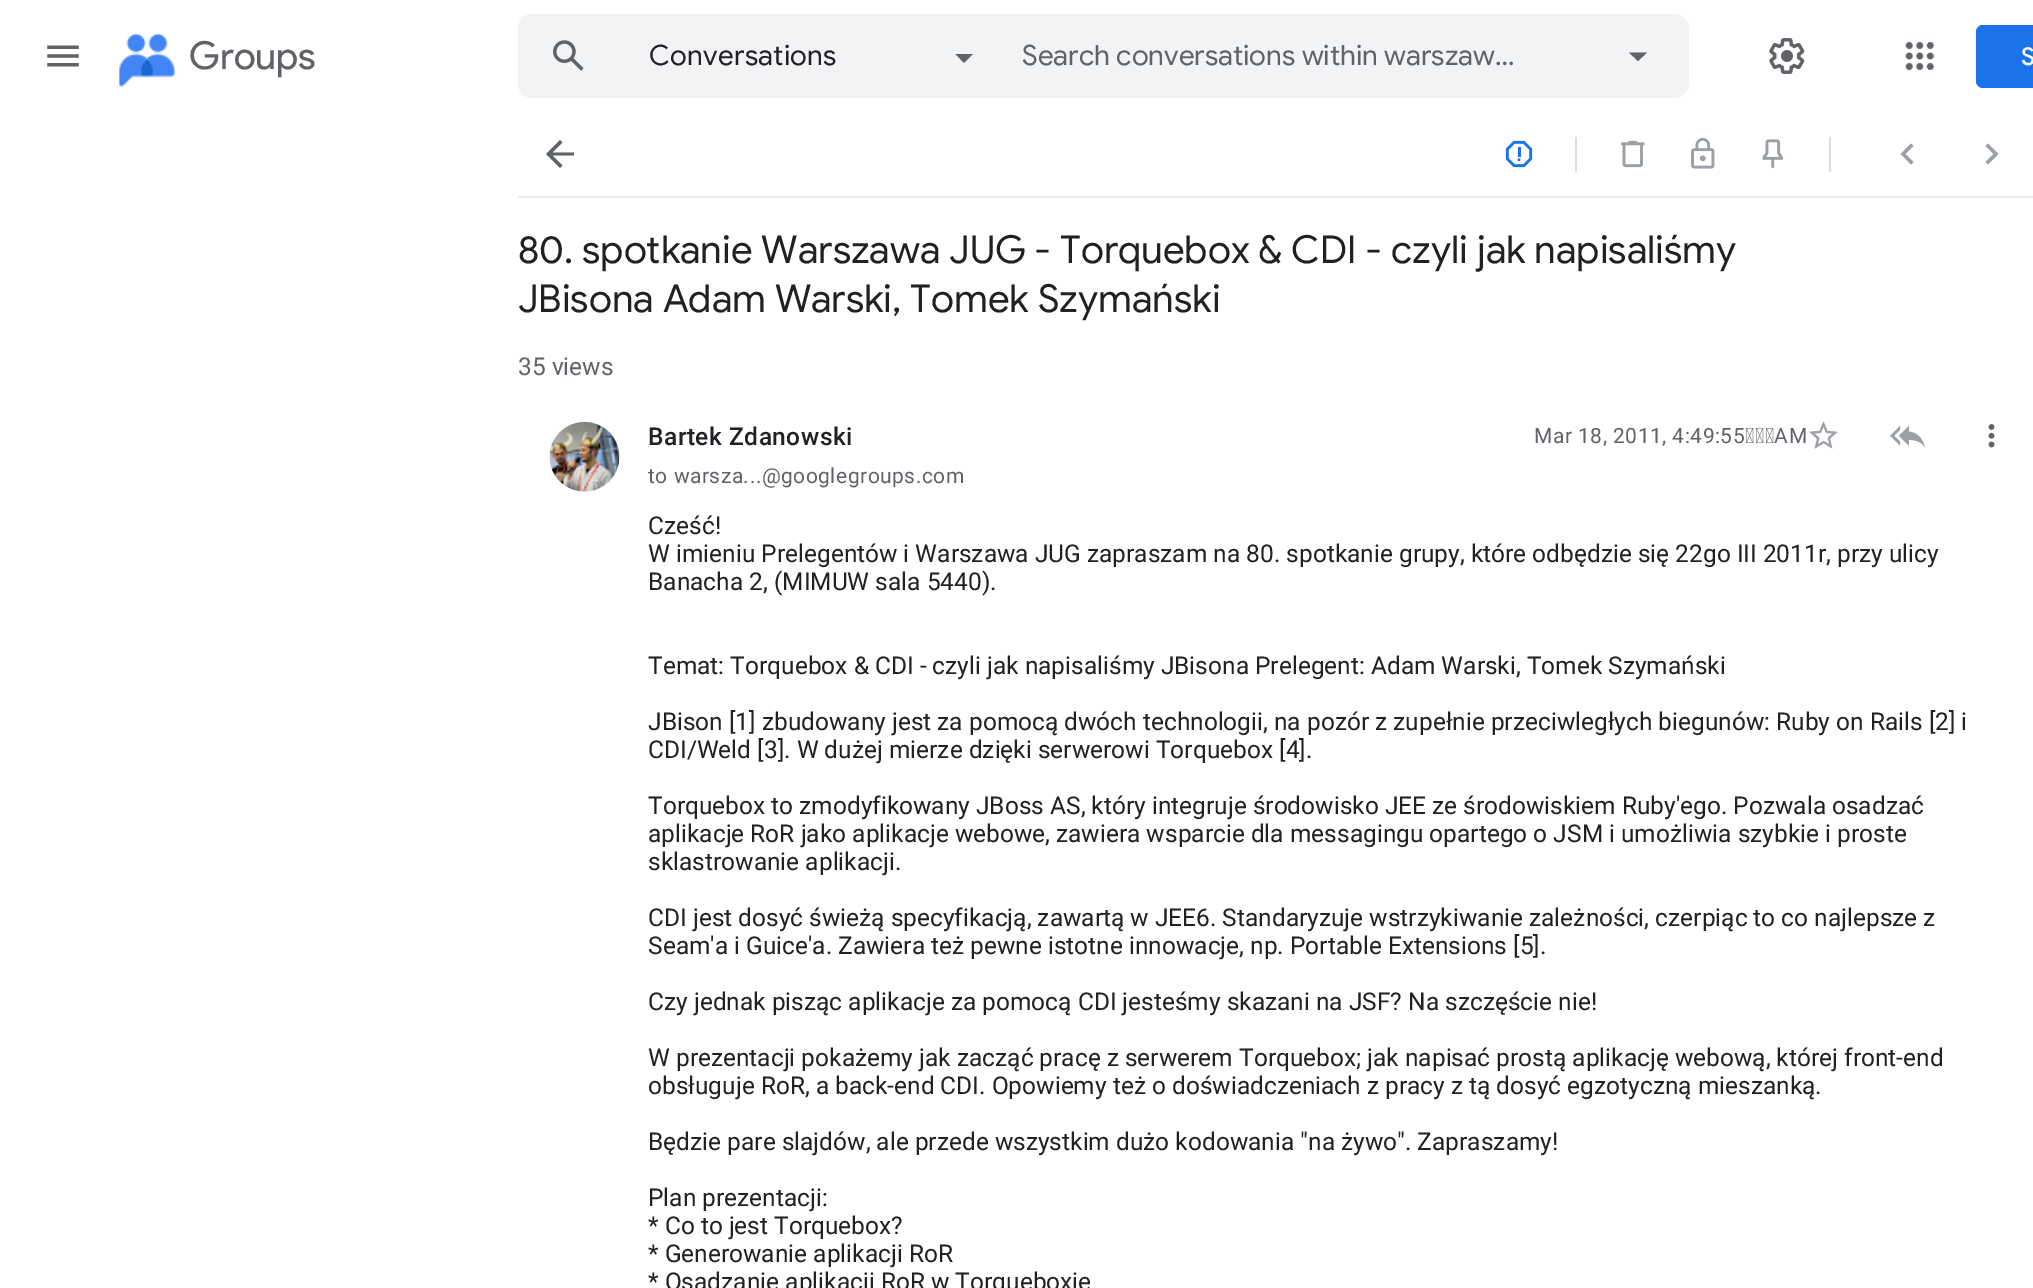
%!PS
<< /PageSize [2033 1288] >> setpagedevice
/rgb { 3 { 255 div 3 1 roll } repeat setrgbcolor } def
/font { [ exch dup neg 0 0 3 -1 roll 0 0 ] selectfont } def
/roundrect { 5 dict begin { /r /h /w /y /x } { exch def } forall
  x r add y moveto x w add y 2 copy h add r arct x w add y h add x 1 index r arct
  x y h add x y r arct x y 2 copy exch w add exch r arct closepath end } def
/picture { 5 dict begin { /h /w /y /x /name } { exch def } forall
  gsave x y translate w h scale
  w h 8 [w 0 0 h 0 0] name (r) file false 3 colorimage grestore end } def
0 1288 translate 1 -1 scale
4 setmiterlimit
255 255 255 rgb
0 0 2033 1288 rectfill
(img/1.rgb) 47 45 32 22 picture
(img/2.rgb) 119 33 56 55 picture
241 243 244 rgb
518 14 1171 84 14 roundrect fill
(img/3.rgb) 553 40 31 31 picture
95 99 104 rgb
955.5 54 moveto 973 54 lineto 964 63 lineto closepath fill
1629 52.5 moveto 1638 61 lineto 1647 52.5 lineto closepath fill
(img/4.rgb) 1769 38 36 36 picture
(img/5.rgb) 1905 42 29 28 picture
26 115 232 rgb
1976 25 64 63 7 roundrect fill
232 234 237 rgb
518 196 1515 2 rectfill
95 99 104 rgb
574 152.5 moveto 574 155.5 lineto 552.5 155.5 lineto 562.5 165.5 lineto 560 168 lineto 546 154 lineto 560 140 lineto 562.5 142.5 lineto 552.5 152.5 lineto closepath fill
(img/6.rgb) 1505 140 28 28 picture
221 221 221 rgb
1575 137 2 35 rectfill
(img/7.rgb) 1621 140 24 28 picture
(img/8.rgb) 1691 138 24 31 picture
(img/9.rgb) 1762 139 21 30 picture
1829 137 2 35 rectfill
154 160 166 rgb
1913.5 146 moveto 1905.5 154 lineto 1913.5 162 lineto 1911 164.5 lineto 1900.5 154 lineto 1911 143.5 lineto closepath fill
1988 143.5 moveto 1998.5 154 lineto 1988 164.5 lineto 1985.5 162 lineto 1993.5 154 lineto 1985.5 146 lineto closepath fill
(img/10.rgb) 549 421 71 71 picture
(img/11.rgb) 1809 421 29 28 picture
(img/12.rgb) 1890 425 35 23 picture
(img/13.rgb) 1988 424 7 24 picture
/ProductSans-Regular 38.5 font
95 99 104 rgb
189 69 moveto (Groups) show
/GoogleSans-Regular 28 font
32 33 36 rgb
649 65 moveto 0.3 0 (Conversations) ashow
95 99 104 rgb
1022 65 moveto (Search conversations within warszaw…) show
/GoogleSans-Medium 24.5 font
255 255 255 rgb
2021 65 moveto 0.5 0 (S) ashow
/GoogleSans-Regular 38.5 font
32 33 36 rgb
518 263 moveto (80. spotkanie Warszawa JUG - Torquebox & CDI - czyli jak napisaliśmy) show
518 312 moveto (JBisona Adam Warski, Tomek Szymański) show
/Roboto-Regular 24.5 font
95 99 104 rgb
518 375 moveto (35 views) show
/Roboto-Medium 24.5 font
32 33 36 rgb
648 445 moveto 0.5 0 (Bartek Zdanowski) ashow
/Roboto-Regular 21 font
95 99 104 rgb
1534 443 moveto 0.5 0 (Mar 18, 2011, 4:49:55 AM) ashow
648 483 moveto 0.5 0 (to warsza...@googlegroups.com) ashow
/Roboto-Regular 24.5 font
32 33 36 rgb
[
  [(Cześć!) 648 534]
  [(W imieniu Prelegentów i Warszawa JUG zapraszam na 80. spotkanie grupy, które odbędzie się 22go III 2011r, przy ulicy) 648 562]
  [(Banacha 2, \(MIMUW sala 5440\).) 648 590]
  [(Temat: Torquebox & CDI - czyli jak napisaliśmy JBisona Prelegent: Adam Warski, Tomek Szymański) 648 674]
  [(JBison [1] zbudowany jest za pomocą dwóch technologii, na pozór z zupełnie przeciwległych biegunów: Ruby on Rails [2] i) 648 730]
  [(CDI/Weld [3]. W dużej mierze dzięki serwerowi Torquebox [4].) 648 758]
  [(Torquebox to zmodyfikowany JBoss AS, który integruje środowisko JEE ze środowiskiem Ruby'ego. Pozwala osadzać) 648 814]
  [(aplikacje RoR jako aplikacje webowe, zawiera wsparcie dla messagingu opartego o JSM i umożliwia szybkie i proste) 648 842]
  [(sklastrowanie aplikacji.) 648 870]
  [(CDI jest dosyć świeżą specyfikacją, zawartą w JEE6. Standaryzuje wstrzykiwanie zależności, czerpiąc to co najlepsze z) 648 926]
  [(Seam'a i Guice'a. Zawiera też pewne istotne innowacje, np. Portable Extensions [5].) 648 954]
  [(Czy jednak pisząc aplikacje za pomocą CDI jesteśmy skazani na JSF? Na szczęście nie!) 648 1010]
  [(W prezentacji pokażemy jak zacząć pracę z serwerem Torquebox; jak napisać prostą aplikację webową, której front-end) 648 1066]
  [(obsługuje RoR, a back-end CDI. Opowiemy też o doświadczeniach z pracy z tą dosyć egzotyczną mieszanką.) 648 1094]
  [(Będzie pare slajdów, ale przede wszystkim dużo kodowania "na żywo". Zapraszamy!) 648 1150]
  [(Plan prezentacji:) 648 1206]
  [(* Co to jest Torquebox?) 648 1234]
  [(* Generowanie aplikacji RoR) 648 1262]
  [(* Osadzanie aplikacji RoR w Torqueboxie) 648 1290]
] { aload pop moveto show } forall
showpage
